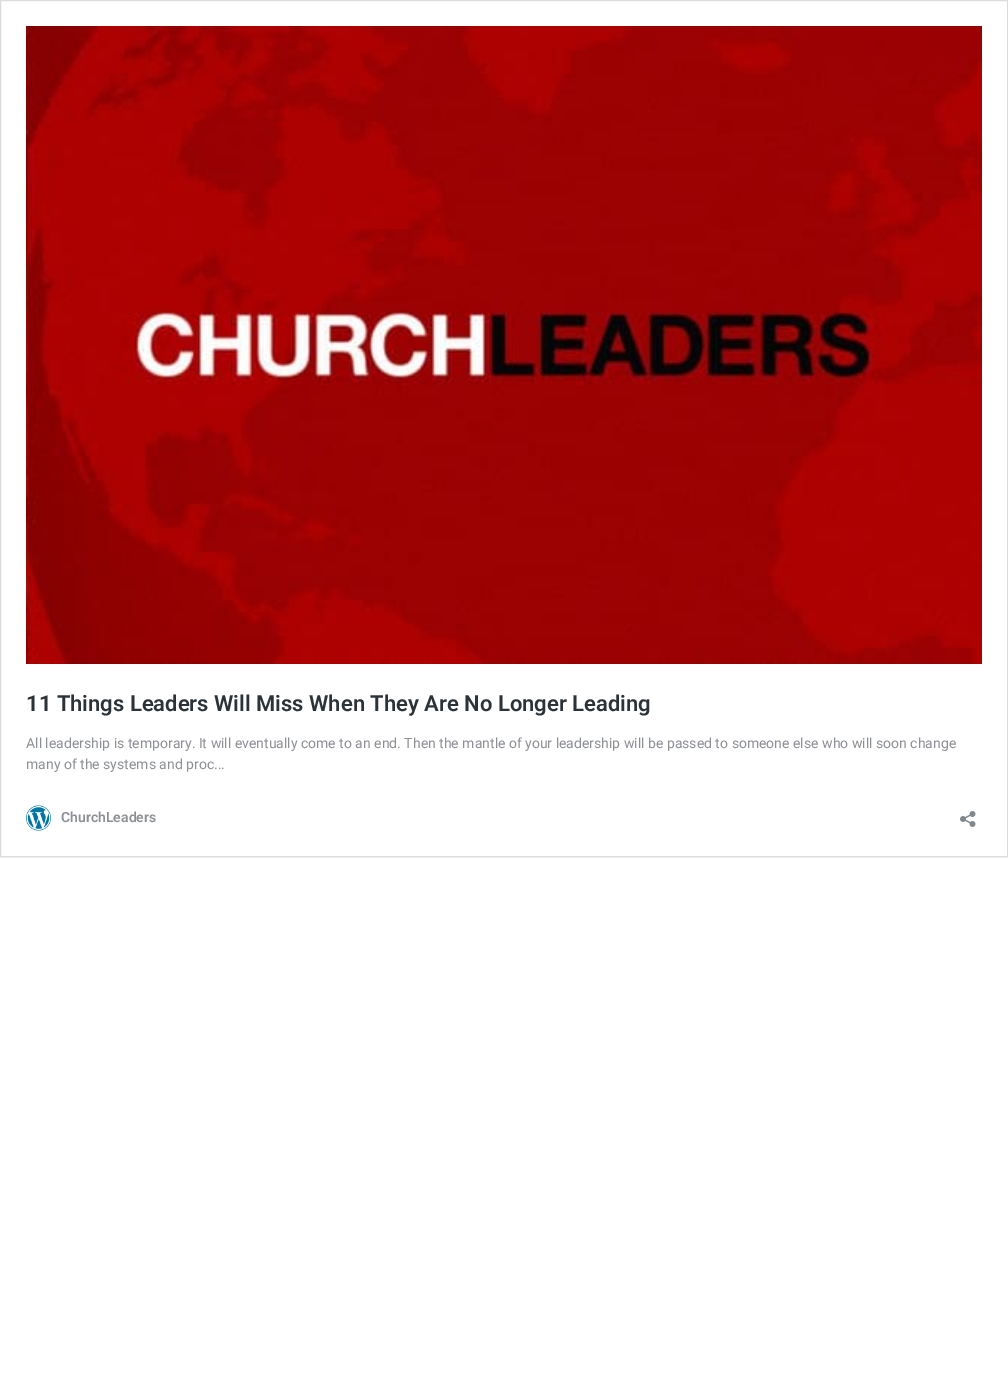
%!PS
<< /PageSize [1008 1382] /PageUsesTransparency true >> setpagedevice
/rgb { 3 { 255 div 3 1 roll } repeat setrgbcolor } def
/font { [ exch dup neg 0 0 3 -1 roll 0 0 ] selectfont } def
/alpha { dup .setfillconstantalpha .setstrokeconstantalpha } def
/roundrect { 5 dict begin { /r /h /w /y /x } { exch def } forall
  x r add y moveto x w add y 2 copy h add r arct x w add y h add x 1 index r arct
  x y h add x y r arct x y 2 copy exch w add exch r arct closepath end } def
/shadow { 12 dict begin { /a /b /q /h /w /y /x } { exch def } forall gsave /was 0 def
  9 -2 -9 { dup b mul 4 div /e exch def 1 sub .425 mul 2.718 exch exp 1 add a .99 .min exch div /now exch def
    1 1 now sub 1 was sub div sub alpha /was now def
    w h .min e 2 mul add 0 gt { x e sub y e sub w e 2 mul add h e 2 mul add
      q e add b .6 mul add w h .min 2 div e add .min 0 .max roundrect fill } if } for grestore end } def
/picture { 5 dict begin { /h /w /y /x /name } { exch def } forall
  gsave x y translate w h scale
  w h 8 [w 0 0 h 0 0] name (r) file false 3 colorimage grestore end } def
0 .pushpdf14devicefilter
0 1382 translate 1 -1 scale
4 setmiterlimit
255 255 255 rgb
0 0 1008 1382 rectfill
gsave
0 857 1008 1 rectclip
0 0 0 rgb
0 1 1008 857 0 0.5 0.05 shadow
grestore
220 220 222 rgb
0.5 0.5 1007 856 rectstroke
(img/1.rgb) 26 26 956 638 picture
(img/2.rgb) 26 805 25 26 picture
(img/3.rgb) 960 811 16 16 picture
/Roboto-SemiBold 22 font
44 51 56 rgb
26 711 moveto (11 Things Leaders Will Miss When They Are No Longer Leading) show
/Roboto-Regular 14 font
140 143 148 rgb
26 748 moveto (All leadership is temporary. It will eventually come to an end. Then the mantle of your leadership will be passed to someone else who will soon change) show
26 769 moveto (many of the systems and proc...) show
/Roboto-SemiBold 14 font
61 822 moveto (ChurchLeaders) show
.poppdf14devicefilter showpage
